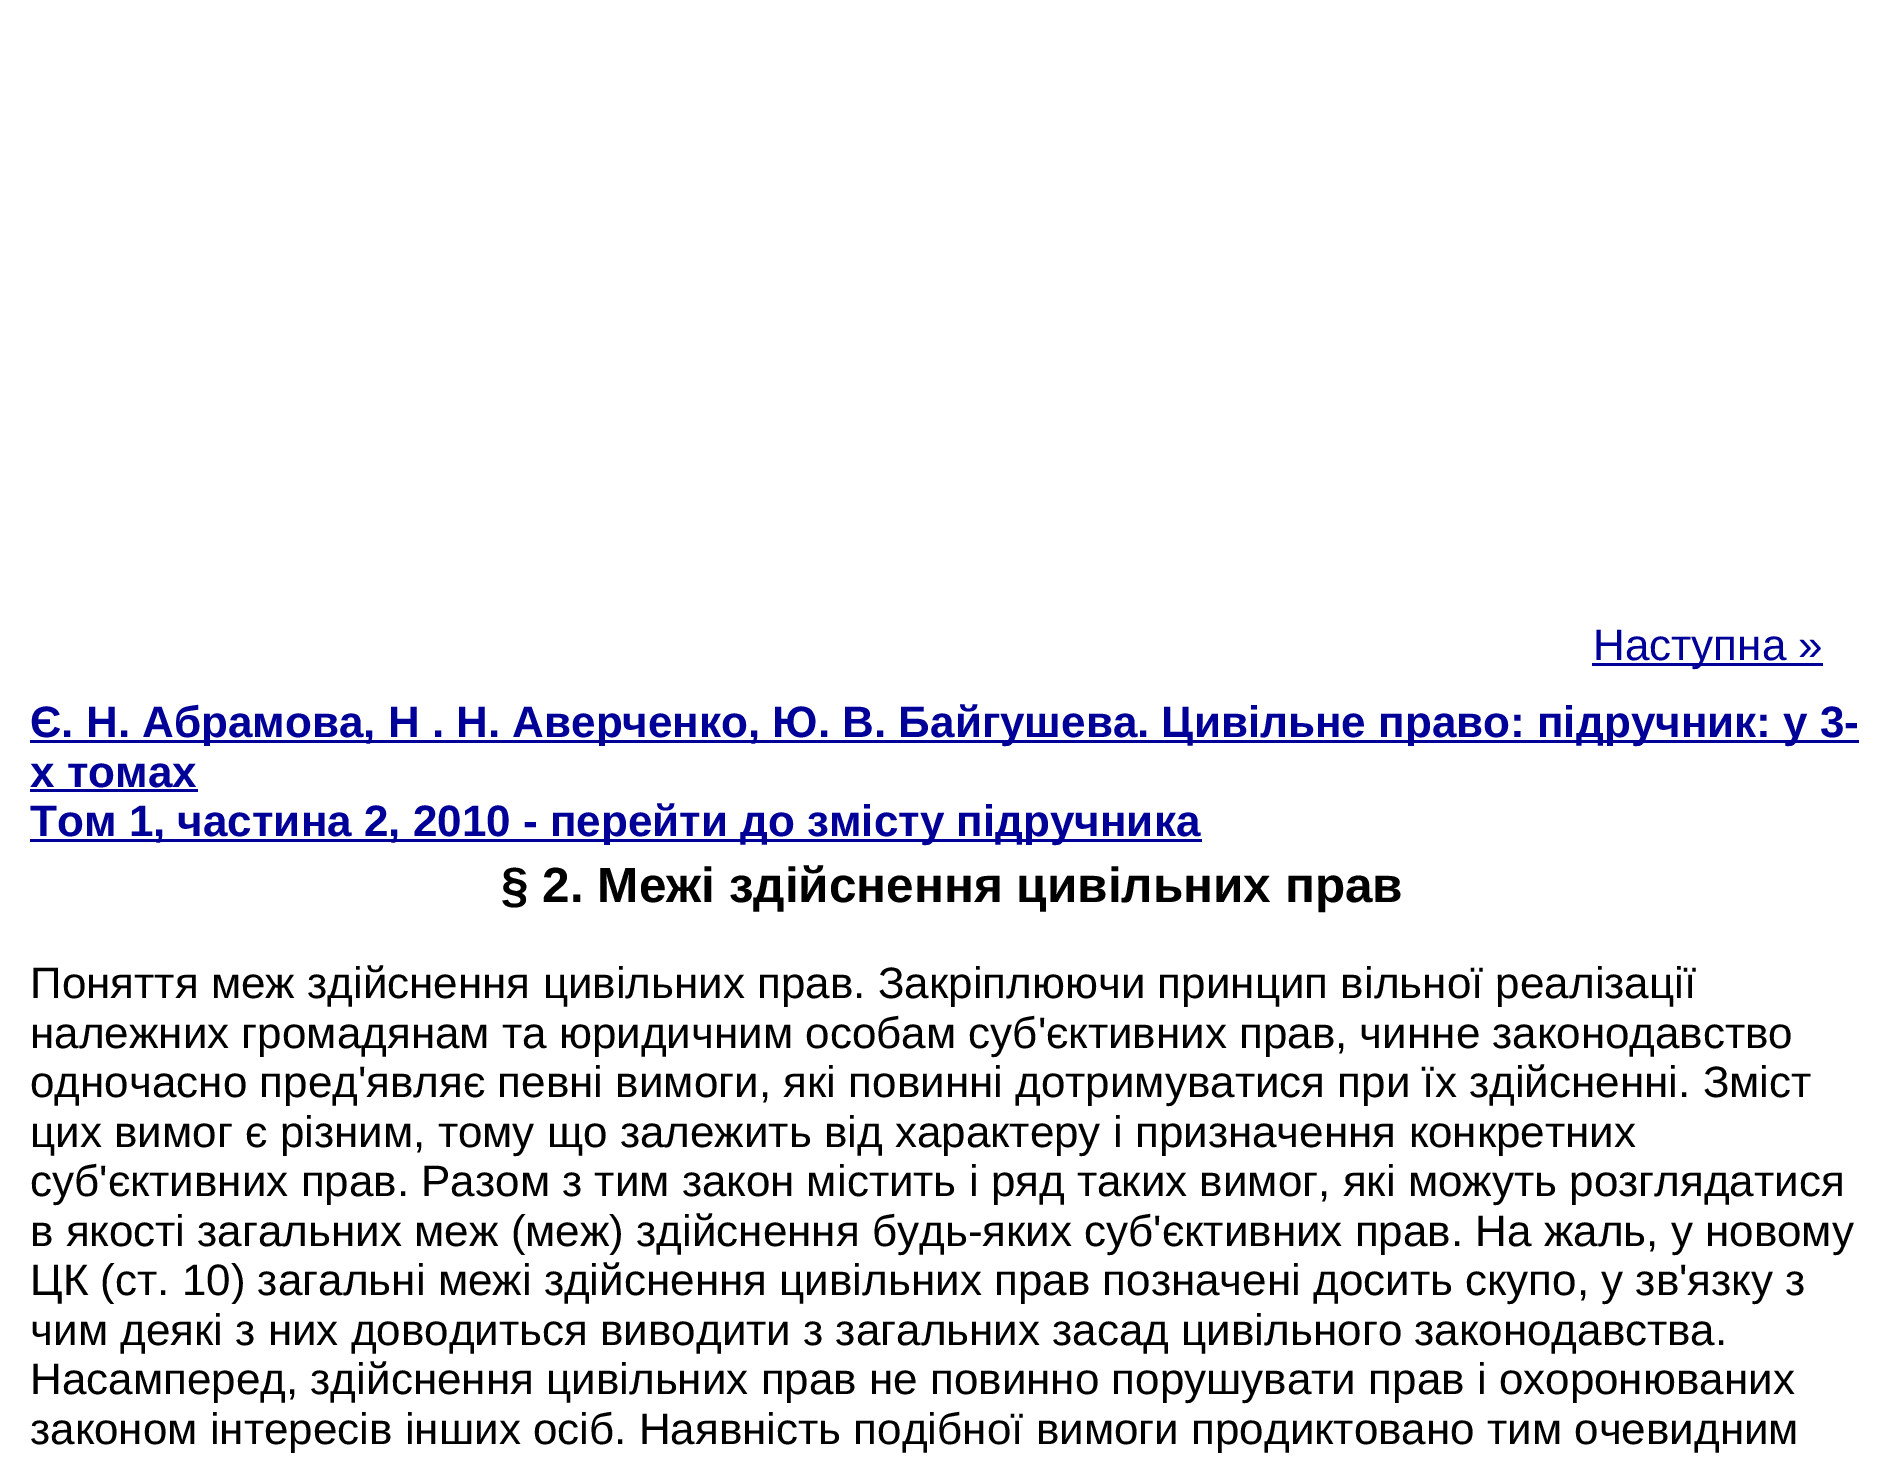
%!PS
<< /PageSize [1901 1461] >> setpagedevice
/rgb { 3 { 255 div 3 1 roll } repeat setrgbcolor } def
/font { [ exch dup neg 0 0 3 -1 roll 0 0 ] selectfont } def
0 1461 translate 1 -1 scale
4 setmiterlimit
255 255 255 rgb
0 0 1901 1461 rectfill
[
  [1592 663 231 3 0 0 153]
  [30 740 1829 3 0 0 153]
  [30 789 168 3 0 0 153]
  [30 839 1172 3 0 0 153]
] { aload pop rgb rectfill } forall
/LiberationSans-Regular 44 font
1593 660 moveto (Наступна ») show
/LiberationSans-Bold 44 font
[
  [(Є. Н. Абрамова, Н . Н. Аверченко, Ю. В. Байгушева. Цивільне право: підручник: у 3-) 30 737]
  [(х томах) 30 787]
  [(Том 1, частина 2, 2010 - перейти до змісту підручника) 30 836]
] { aload pop moveto show } forall
/LiberationSans-Bold 49.5 font
0 0 0 rgb
501 902 moveto (§ 2. Межі здійснення цивільних прав) show
/LiberationSans-Regular 44 font
[
  [(Поняття меж здійснення цивільних прав. Закріплюючи принцип вільної реалізації) 30 998]
  [(належних громадянам та юридичним особам суб'єктивних прав, чинне законодавство) 30 1048]
  [(одночасно пред'являє певні вимоги, які повинні дотримуватися при їх здійсненні. Зміст) 30 1097]
  [(цих вимог є різним, тому що залежить від характеру і призначення конкретних) 30 1147]
  [(суб'єктивних прав. Разом з тим закон містить і ряд таких вимог, які можуть розглядатися) 30 1196]
  [(в якості загальних меж \(меж\) здійснення будь-яких суб'єктивних прав. На жаль, у новому) 30 1246]
  [(ЦК \(ст. 10\) загальні межі здійснення цивільних прав позначені досить скупо, у зв'язку з) 30 1295]
  [(чим деякі з них доводиться виводити з загальних засад цивільного законодавства.) 30 1345]
  [(Насамперед, здійснення цивільних прав не повинно порушувати прав і охоронюваних) 30 1394]
  [(законом інтересів інших осіб. Наявність подібної вимоги продиктовано тим очевидним) 30 1444]
] { aload pop moveto show } forall
showpage
